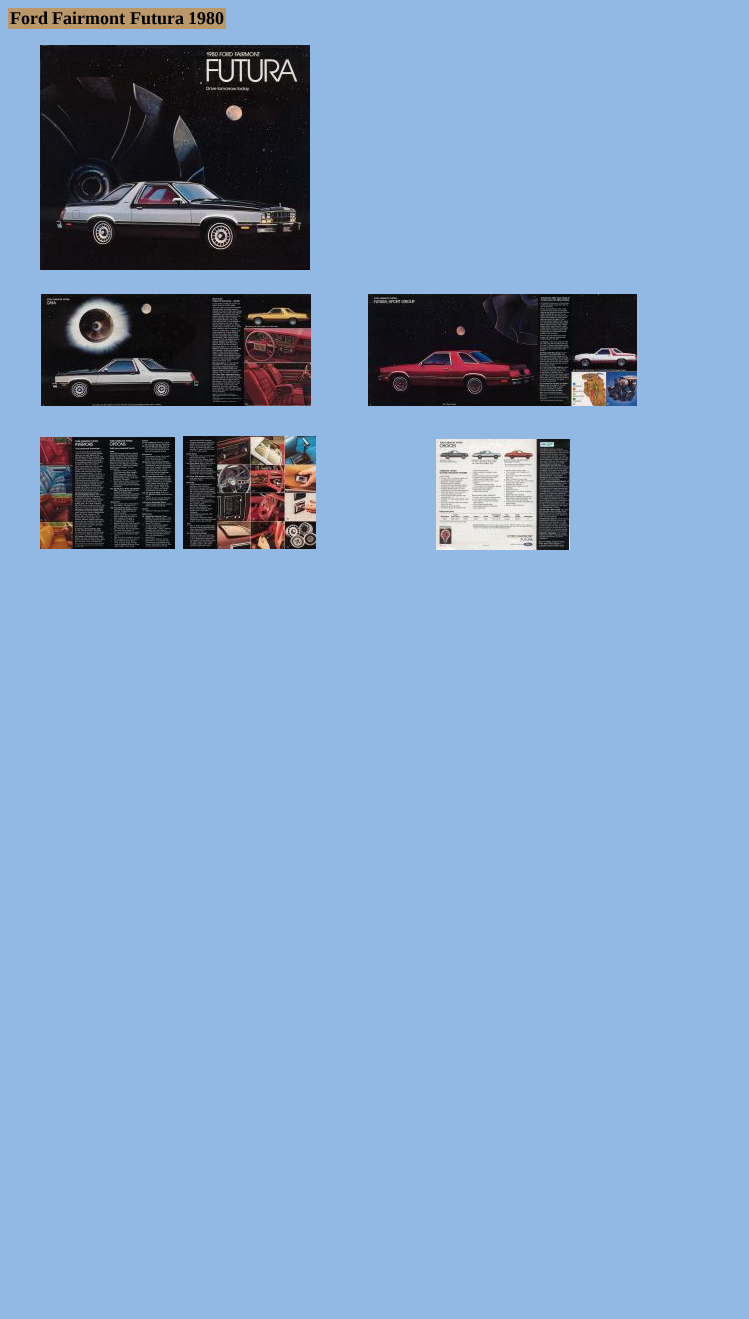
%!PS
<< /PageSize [749 1319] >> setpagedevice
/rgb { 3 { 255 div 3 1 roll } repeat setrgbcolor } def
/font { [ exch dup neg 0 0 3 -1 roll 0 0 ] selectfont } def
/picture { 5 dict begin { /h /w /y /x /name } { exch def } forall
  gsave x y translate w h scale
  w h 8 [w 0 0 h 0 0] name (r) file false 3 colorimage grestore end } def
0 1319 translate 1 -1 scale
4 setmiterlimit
146 185 228 rgb
0 0 749 1319 rectfill
186 152 105 rgb
8 8 218 21 rectfill
(img/1.rgb) 40 45 270 225 picture
(img/2.rgb) 41 294 270 112 picture
(img/3.rgb) 368 294 269 112 picture
(img/4.rgb) 40 437 135 112 picture
(img/5.rgb) 183 436 133 113 picture
(img/6.rgb) 436 439 134 111 picture
/LiberationSerif-Bold 18 font
0 0 0 rgb
10 24 moveto (Ford Fairmont Futura 1980) show
showpage
